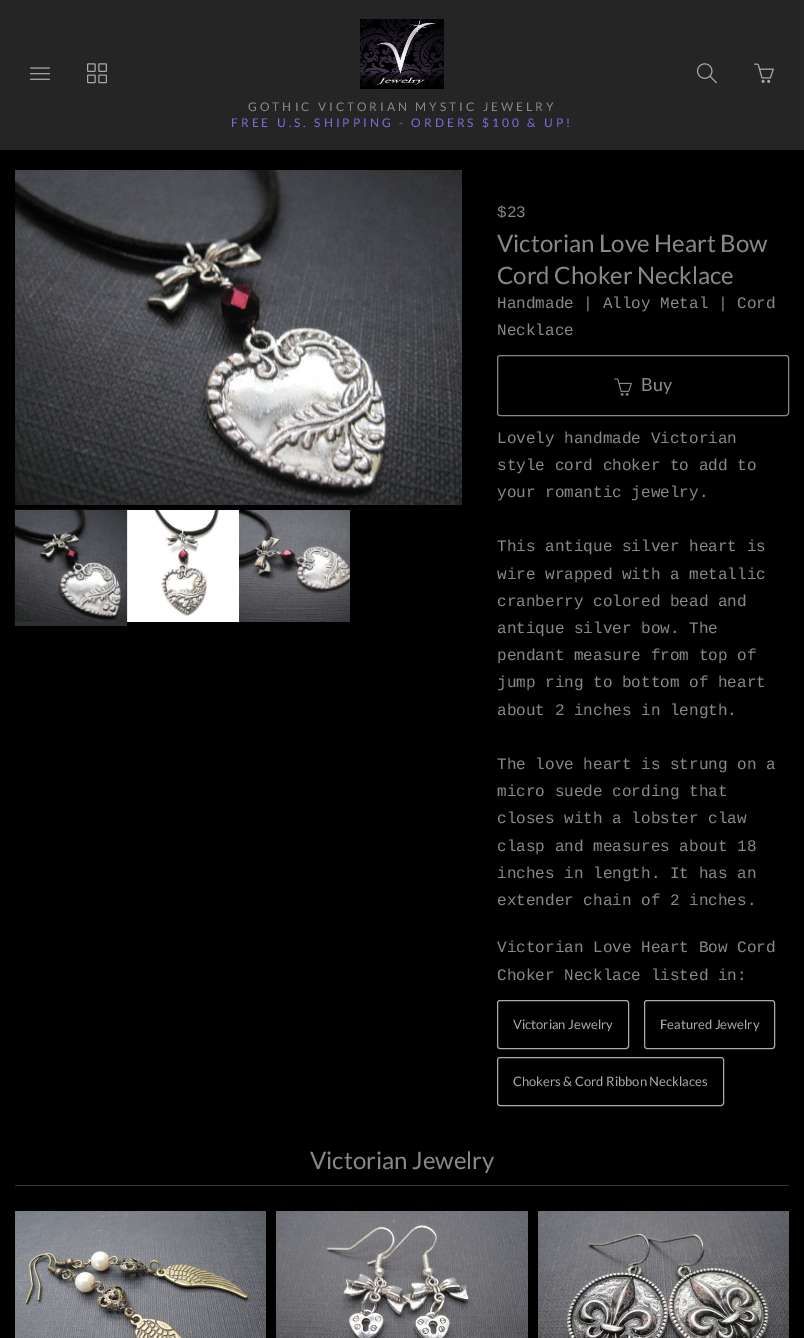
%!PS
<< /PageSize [804 1338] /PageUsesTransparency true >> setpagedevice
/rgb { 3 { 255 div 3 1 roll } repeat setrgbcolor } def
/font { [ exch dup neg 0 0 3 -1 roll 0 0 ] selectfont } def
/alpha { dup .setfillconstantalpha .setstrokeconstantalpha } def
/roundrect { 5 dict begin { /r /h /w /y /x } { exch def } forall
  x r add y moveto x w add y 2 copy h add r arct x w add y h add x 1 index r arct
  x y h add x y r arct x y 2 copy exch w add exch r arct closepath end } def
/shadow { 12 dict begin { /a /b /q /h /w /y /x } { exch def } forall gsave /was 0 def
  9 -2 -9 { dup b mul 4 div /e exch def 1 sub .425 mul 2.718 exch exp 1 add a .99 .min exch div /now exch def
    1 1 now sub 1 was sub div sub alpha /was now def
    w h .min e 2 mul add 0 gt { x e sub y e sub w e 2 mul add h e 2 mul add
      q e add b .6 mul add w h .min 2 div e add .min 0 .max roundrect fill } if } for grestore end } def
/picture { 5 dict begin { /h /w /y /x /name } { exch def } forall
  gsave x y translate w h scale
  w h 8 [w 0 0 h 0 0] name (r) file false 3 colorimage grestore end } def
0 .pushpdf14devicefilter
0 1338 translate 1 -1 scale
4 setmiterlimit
0 0 0 rgb
0 0 804 1338 rectfill
37 37 37 rgb
0 0 804 150 rectfill
(img/1.rgb) 30 67 20 13 picture
(img/2.rgb) 87 63 20 21 picture
(img/3.rgb) 697 63 20 21 picture
(img/4.rgb) 754 63 20 20 picture
(img/5.rgb) 360 19 84 70 picture
(img/6.rgb) 15 170 447 335 picture
47 47 47 rgb
15 622 112 4 rectfill
(img/8.rgb) 127 510 112 112 picture
73 73 73 rgb
15 510 112 112 0 0.5 0.44 shadow
(img/7.rgb) 15 510 112 112 picture
(img/9.rgb) 239 510 111 112 picture
136 136 136 rgb
497.5 355.5 291 60 2.5 roundrect stroke
(img/10.rgb) 614 378 18 18 picture
170 170 170 rgb
497.5 1000.5 131 48 2.5 roundrect stroke
644.5 1000.5 130 48 2.5 roundrect stroke
497.5 1057.5 226 48 2.5 roundrect stroke
51 51 51 rgb
15 1185 774 1 rectfill
(img/11.rgb) 15 1211 251 127 picture
(img/12.rgb) 276 1211 252 127 picture
(img/13.rgb) 538 1211 251 127 picture
/Lato-Regular 12 font
136 136 136 rgb
248 111 moveto 3 0 (GOTHIC VICTORIAN MYSTIC JEWELRY) ashow
132 103 215 rgb
231 127 moveto 3 0 (FREE U.S. SHIPPING - ORDERS $100 & UP!) ashow
/LiberationMono-Regular 16 font
136 136 136 rgb
497 217 moveto ($23) show
/Lato-Regular 24 font
497 252 moveto (Victorian Love Heart Bow) show
497 284 moveto (Cord Choker Necklace) show
/LiberationMono-Regular 16 font
497 308 moveto (Handmade | Alloy Metal | Cord) show
497 335 moveto (Necklace) show
/Lato-Regular 18 font
641 391 moveto (Buy) show
/LiberationMono-Regular 16 font
[
  [(Lovely handmade Victorian) 497 443]
  [(style cord choker to add to) 497 470]
  [(your romantic jewelry.) 497 497]
  [(This antique silver heart is) 497 551]
  [(wire wrapped with a metallic) 497 579]
  [(cranberry colored bead and) 497 606]
  [(antique silver bow. The) 497 633]
  [(pendant measure from top of) 497 660]
  [(jump ring to bottom of heart) 497 687]
  [(about 2 inches in length.) 497 715]
  [(The love heart is strung on a) 497 769]
  [(micro suede cording that) 497 796]
  [(closes with a lobster claw) 497 823]
  [(clasp and measures about 18) 497 851]
  [(inches in length. It has an) 497 878]
  [(extender chain of 2 inches.) 497 905]
  [(Victorian Love Heart Bow Cord) 497 952]
  [(Choker Necklace listed in:) 497 980]
] { aload pop moveto show } forall
/Lato-Regular 13 font
170 170 170 rgb
[
  [(Victorian Jewelry) 513 1029]
  [(Featured Jewelry) 660 1029]
  [(Chokers & Cord Ribbon Necklaces) 513 1086]
] { aload pop moveto show } forall
/Lato-Regular 24 font
136 136 136 rgb
310 1169 moveto (Victorian Jewelry) show
.poppdf14devicefilter showpage
